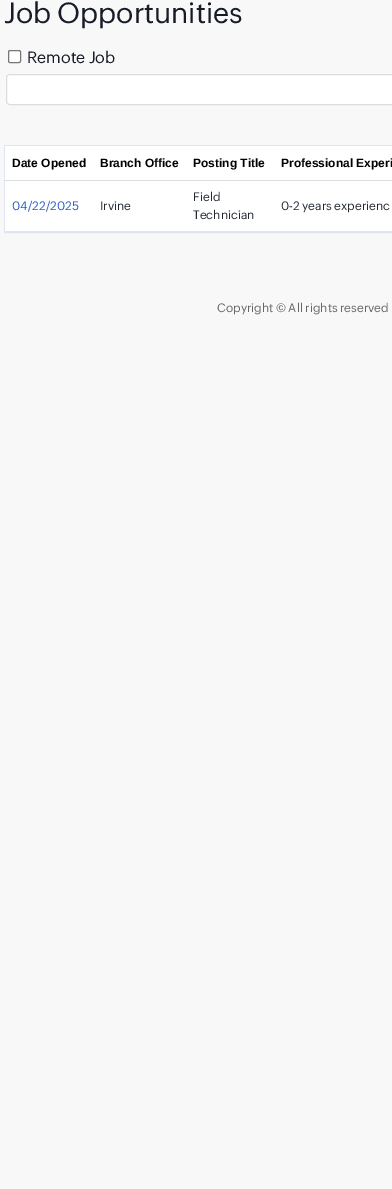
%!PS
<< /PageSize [392 1189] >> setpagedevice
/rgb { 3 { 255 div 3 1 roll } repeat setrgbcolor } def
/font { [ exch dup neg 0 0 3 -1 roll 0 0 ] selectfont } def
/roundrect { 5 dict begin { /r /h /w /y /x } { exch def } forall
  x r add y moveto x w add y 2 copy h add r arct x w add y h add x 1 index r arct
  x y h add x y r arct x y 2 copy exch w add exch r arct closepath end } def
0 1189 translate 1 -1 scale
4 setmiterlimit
248 248 248 rgb
0 0 392 1189 rectfill
255 255 255 rgb
8.5 50.5 12 12 1.5 roundrect gsave fill grestore
118 118 118 rgb
stroke
255 255 255 rgb
6.5 74.5 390 30 3.5 roundrect gsave fill grestore
221 221 221 rgb
stroke
222 228 240 rgb
4.5 145.5 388 87 rectstroke
[
  [5 146 387 34 255 255 255]
  [5 180 387 1 221 221 221]
  [5 181 387 50 255 255 255]
  [5 231 387 1 222 228 240]
] { aload pop rgb rectfill } forall
/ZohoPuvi-Regular 28.5 font
23 27 39 rgb
4 23 moveto (Job Opportunities) show
/ZohoPuvi-Regular 16 font
27 63 moveto (Remote Job) show
/LiberationSans-Bold 12 font
0 0 0 rgb
[
  [(Date Opened) 12 167]
  [(Branch Office) 100 167]
  [(Posting Title) 193 167]
  [(Professional Experi) 281 167]
] { aload pop moveto show } forall
/ZohoPuvi-Regular 12 font
40 92 195 rgb
12 210 moveto (04/22/2025) show
35 41 51 rgb
[
  [(Irvine) 100 210]
  [(Field) 193 201]
  [(Technician) 193 219]
  [(0-2 years experienc) 281 210]
] { aload pop moveto show } forall
102 102 102 rgb
217 312 moveto (Copyright © All rights reserved) show
showpage
